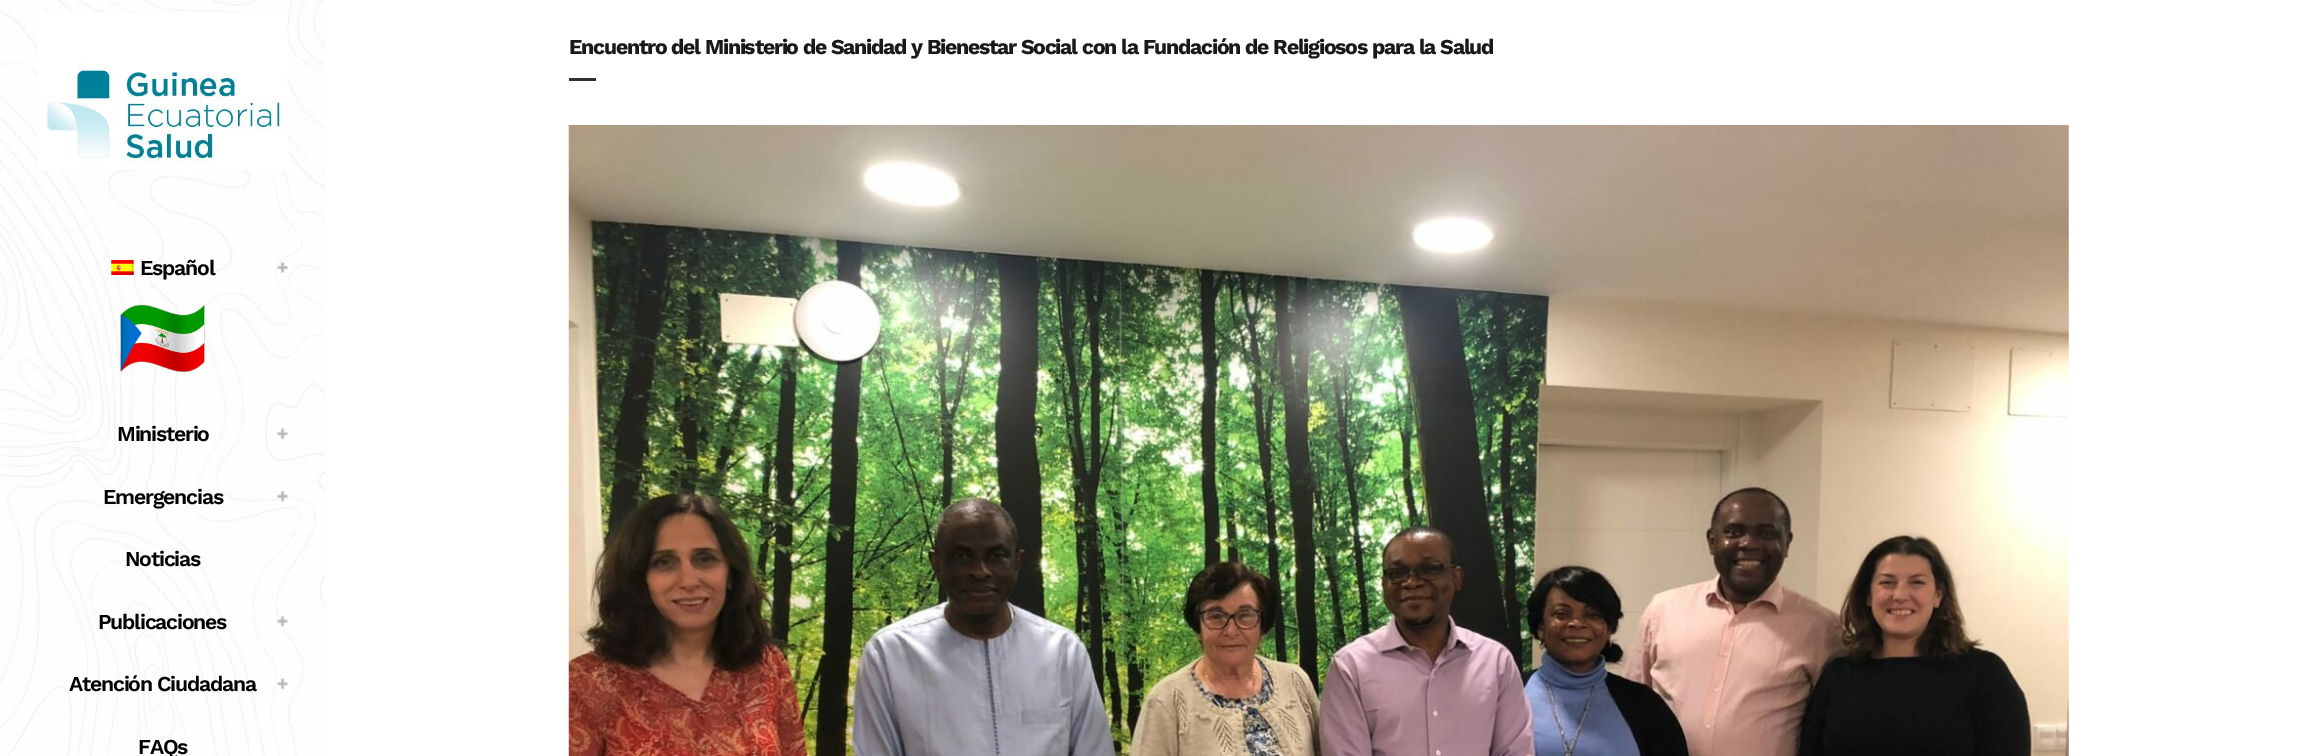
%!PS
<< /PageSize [2312 756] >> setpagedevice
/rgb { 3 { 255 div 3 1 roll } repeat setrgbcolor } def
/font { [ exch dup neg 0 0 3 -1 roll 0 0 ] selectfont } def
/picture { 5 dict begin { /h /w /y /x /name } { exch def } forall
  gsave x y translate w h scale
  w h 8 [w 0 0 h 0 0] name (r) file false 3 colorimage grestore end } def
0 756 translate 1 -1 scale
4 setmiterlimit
255 255 255 rgb
0 0 2312 756 rectfill
48 48 48 rgb
569 78 27 3 rectfill
(img/1.rgb) 568 125 1501 631 picture
(img/2.rgb) 0 0 325 756 picture
(img/3.rgb) 37 12 251 158 picture
(img/4.rgb) 111 260 23 15 picture
(img/5.rgb) 277 262 11 11 picture
(img/6.rgb) 120 304 85 68 picture
(img/7.rgb) 277 428 11 12 picture
(img/8.rgb) 277 490 11 12 picture
(img/9.rgb) 277 615 11 12 picture
(img/10.rgb) 277 678 11 12 picture
/WorkSans-Bold 21.25 font
25 25 25 rgb
569 54 moveto -1.25 0 (Encuentro del Ministerio de Sanidad y Bienestar Social con la Fundación de Religiosos para la Salud) ashow
/WorkSans-SemiBold 21.25 font
0 0 0 rgb
140 275 moveto -1.25 0 (Español) ashow
117 441 moveto -1.25 0 (Ministerio) ashow
103 504 moveto -1.25 0 (Emergencias) ashow
125 566 moveto -1.25 0 (Noticias) ashow
98 629 moveto -1.25 0 (Publicaciones) ashow
69 691 moveto -1.25 0 (Atención Ciudadana) ashow
138 754 moveto -1.25 0 (FAQs) ashow
showpage
